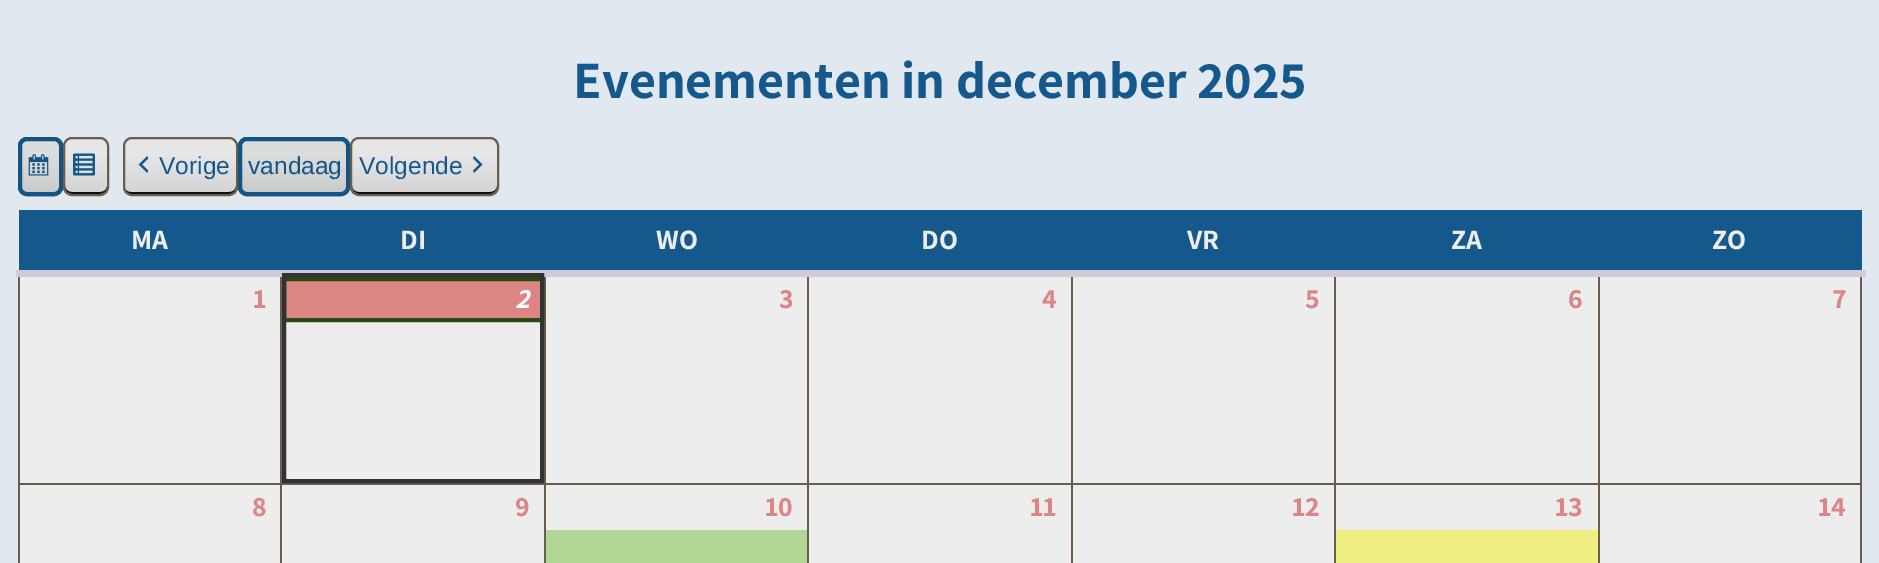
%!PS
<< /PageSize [1879 563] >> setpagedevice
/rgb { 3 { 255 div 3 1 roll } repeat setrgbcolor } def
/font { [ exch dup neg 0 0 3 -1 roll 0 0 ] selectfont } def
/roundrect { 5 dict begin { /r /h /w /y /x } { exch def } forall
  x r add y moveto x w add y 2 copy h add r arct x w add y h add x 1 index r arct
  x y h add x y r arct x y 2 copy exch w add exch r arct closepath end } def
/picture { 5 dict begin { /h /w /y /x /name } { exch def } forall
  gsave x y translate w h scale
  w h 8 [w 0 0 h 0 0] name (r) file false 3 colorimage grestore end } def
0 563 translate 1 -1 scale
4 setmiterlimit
226 232 240 rgb
0 0 1879 563 rectfill
gsave
18 137 45 59 9 roundrect clip newpath
gsave 18 138 moveto 63 138 lineto 63 194 lineto 18 194 lineto closepath clip newpath
<< /ShadingType 2 /ColorSpace /DeviceRGB /Coords [40 194 40 138] /Extend [true true] /Function << /FunctionType 3 /Domain [0 1] /Functions [<< /FunctionType 2 /Domain [0 1] /C0 [0.788 0.792 0.792] /C1 [0.859 0.863 0.863] /N 1 >> << /FunctionType 2 /Domain [0 1] /C0 [0.859 0.863 0.863] /C1 [0.859 0.863 0.863] /N 1 >>] /Bounds [0.7] /Encode [0 1 0 1] >> >> shfill grestore
grestore
100 89 69 rgb
2 setlinewidth
19 138 43 57 8 roundrect stroke
(img/1.rgb) 28 154 21 22 picture
20 84 133 rgb
4 setlinewidth
20 139 41 55 7 roundrect stroke
gsave
63 137 46 59 9 roundrect clip newpath
gsave 63 138 moveto 109 138 lineto 109 194 lineto 63 194 lineto closepath clip newpath
<< /ShadingType 2 /ColorSpace /DeviceRGB /Coords [86 194 86 138] /Extend [true true] /Function << /FunctionType 3 /Domain [0 1] /Functions [<< /FunctionType 2 /Domain [0 1] /C0 [0.827 0.827 0.831] /C1 [0.902 0.902 0.906] /N 1 >> << /FunctionType 2 /Domain [0 1] /C0 [0.902 0.902 0.906] /C1 [0.902 0.902 0.906] /N 1 >>] /Bounds [0.7] /Encode [0 1 0 1] >> >> shfill grestore
grestore
15 15 15 rgb
65 186 moveto 65 194 70 194 77 194 curveto 95 194 lineto 102 194 107 194 107 186 curveto 107 189 104 192 100 192 curveto 72 192 lineto 68 192 65 189 65 186 curveto closepath fill
105 94 73 rgb
2 setlinewidth
64 138 44 57 8 roundrect stroke
(img/2.rgb) 73 153 22 23 picture
gsave
123 137 115 59 9 roundrect clip newpath
gsave 123 138 moveto 238 138 lineto 238 194 lineto 123 194 lineto closepath clip newpath
<< /ShadingType 2 /ColorSpace /DeviceRGB /Coords [180 194 180 138] /Extend [true true] /Function << /FunctionType 3 /Domain [0 1] /Functions [<< /FunctionType 2 /Domain [0 1] /C0 [0.827 0.827 0.831] /C1 [0.902 0.902 0.906] /N 1 >> << /FunctionType 2 /Domain [0 1] /C0 [0.902 0.902 0.906] /C1 [0.902 0.902 0.906] /N 1 >>] /Bounds [0.7] /Encode [0 1 0 1] >> >> shfill grestore
grestore
15 15 15 rgb
124 186 moveto 124 198 140 194 147 194 curveto 213 194 lineto 220 194 236 198 236 186 curveto 236 189 233 192 229 192 curveto 131 192 lineto 127 192 124 189 124 186 curveto closepath fill
105 94 73 rgb
124 138 113 57 8 roundrect stroke
(img/3.rgb) 138 156 11 17 picture
gsave
238 137 112 59 9 roundrect clip newpath
gsave 238 138 moveto 350 138 lineto 350 194 lineto 238 194 lineto closepath clip newpath
<< /ShadingType 2 /ColorSpace /DeviceRGB /Coords [294 194 294 138] /Extend [true true] /Function << /FunctionType 3 /Domain [0 1] /Functions [<< /FunctionType 2 /Domain [0 1] /C0 [0.788 0.792 0.792] /C1 [0.859 0.863 0.863] /N 1 >> << /FunctionType 2 /Domain [0 1] /C0 [0.859 0.863 0.863] /C1 [0.859 0.863 0.863] /N 1 >>] /Bounds [0.7] /Encode [0 1 0 1] >> >> shfill grestore
grestore
100 89 69 rgb
239 138 110 57 8 roundrect stroke
20 84 133 rgb
4 setlinewidth
240 139 108 55 7 roundrect stroke
gsave
350 137 149 59 9 roundrect clip newpath
gsave 350 138 moveto 499 138 lineto 499 194 lineto 350 194 lineto closepath clip newpath
<< /ShadingType 2 /ColorSpace /DeviceRGB /Coords [424 194 424 138] /Extend [true true] /Function << /FunctionType 3 /Domain [0 1] /Functions [<< /FunctionType 2 /Domain [0 1] /C0 [0.827 0.827 0.831] /C1 [0.902 0.902 0.906] /N 1 >> << /FunctionType 2 /Domain [0 1] /C0 [0.902 0.902 0.906] /C1 [0.902 0.902 0.906] /N 1 >>] /Bounds [0.7] /Encode [0 1 0 1] >> >> shfill grestore
grestore
15 15 15 rgb
352 186 moveto 352 199 375 194 381 194 curveto 468 194 lineto 474 194 497 199 497 186 curveto 497 189 494 192 490 192 curveto 359 192 lineto 355 192 352 189 352 186 curveto closepath fill
105 94 73 rgb
2 setlinewidth
351 138 147 57 8 roundrect stroke
(img/4.rgb) 472 156 11 17 picture
[
  [20 277 1840 286 237 237 237]
  [1598 483 264 2 105 94 73]
  [1598 483 2 80 105 94 73]
  [1334 483 266 2 105 94 73]
  [1334 483 2 80 105 94 73]
  [1071 483 264 2 105 94 73]
  [1071 483 2 80 105 94 73]
  [807 483 266 2 105 94 73]
  [807 483 2 80 105 94 73]
  [544 483 265 2 105 94 73]
  [544 483 2 80 105 94 73]
  [280 483 266 2 105 94 73]
  [280 483 2 80 105 94 73]
  [18 483 264 2 105 94 73]
  [280 273 2 212 105 94 73]
  [544 273 2 212 105 94 73]
  [807 273 2 212 105 94 73]
  [1071 273 2 212 105 94 73]
  [1334 273 2 212 105 94 73]
  [1598 273 2 212 105 94 73]
  [18 273 2 290 105 94 73]
  [1860 273 2 290 105 94 73]
  [16 270 1850 7 208 203 216]
  [19 210 1843 60 21 88 140]
] { aload pop rgb rectfill } forall
220 133 133 rgb
284 279 moveto 542 279 lineto 542 320 lineto 284 320 lineto closepath gsave fill grestore
43 73 17 rgb
4 setlinewidth
stroke
49 50 51 rgb
284 275 258 206 rectstroke
175 214 149 rgb
546 530 261 33 rectfill
237 237 130 rgb
1336 530 262 33 rectfill
/Assistant-Bold 52.5 font
21 88 140 rgb
573 98 moveto (Evenementen in december 2025) show
/LiberationSans-Regular 24.5 font
159 174 moveto (Vorige) show
20 84 133 rgb
248 174 moveto (vandaag) show
21 88 140 rgb
359 174 moveto (Volgende) show
/Assistant-Bold 28 font
237 237 237 rgb
[
  [(MA) 131 249]
  [(DI) 400 249]
  [(WO) 656 249]
  [(DO) 921 249]
  [(VR) 1187 249]
  [(ZA) 1451 249]
  [(ZO) 1712 249]
] { aload pop moveto show } forall
220 133 133 rgb
253 308 moveto (1) show
/Assistant-BoldItalic 28 font
255 255 255 rgb
515 308 moveto (2) show
/Assistant-Bold 28 font
220 133 133 rgb
[
  [(3) 779 308]
  [(4) 1042 308]
  [(5) 1305 308]
  [(6) 1568 308]
  [(7) 1832 308]
  [(8) 252 516]
  [(9) 515 516]
  [(10) 765 516]
  [(11) 1030 516]
  [(12) 1292 516]
  [(13) 1555 516]
  [(14) 1818 516]
] { aload pop moveto show } forall
showpage
